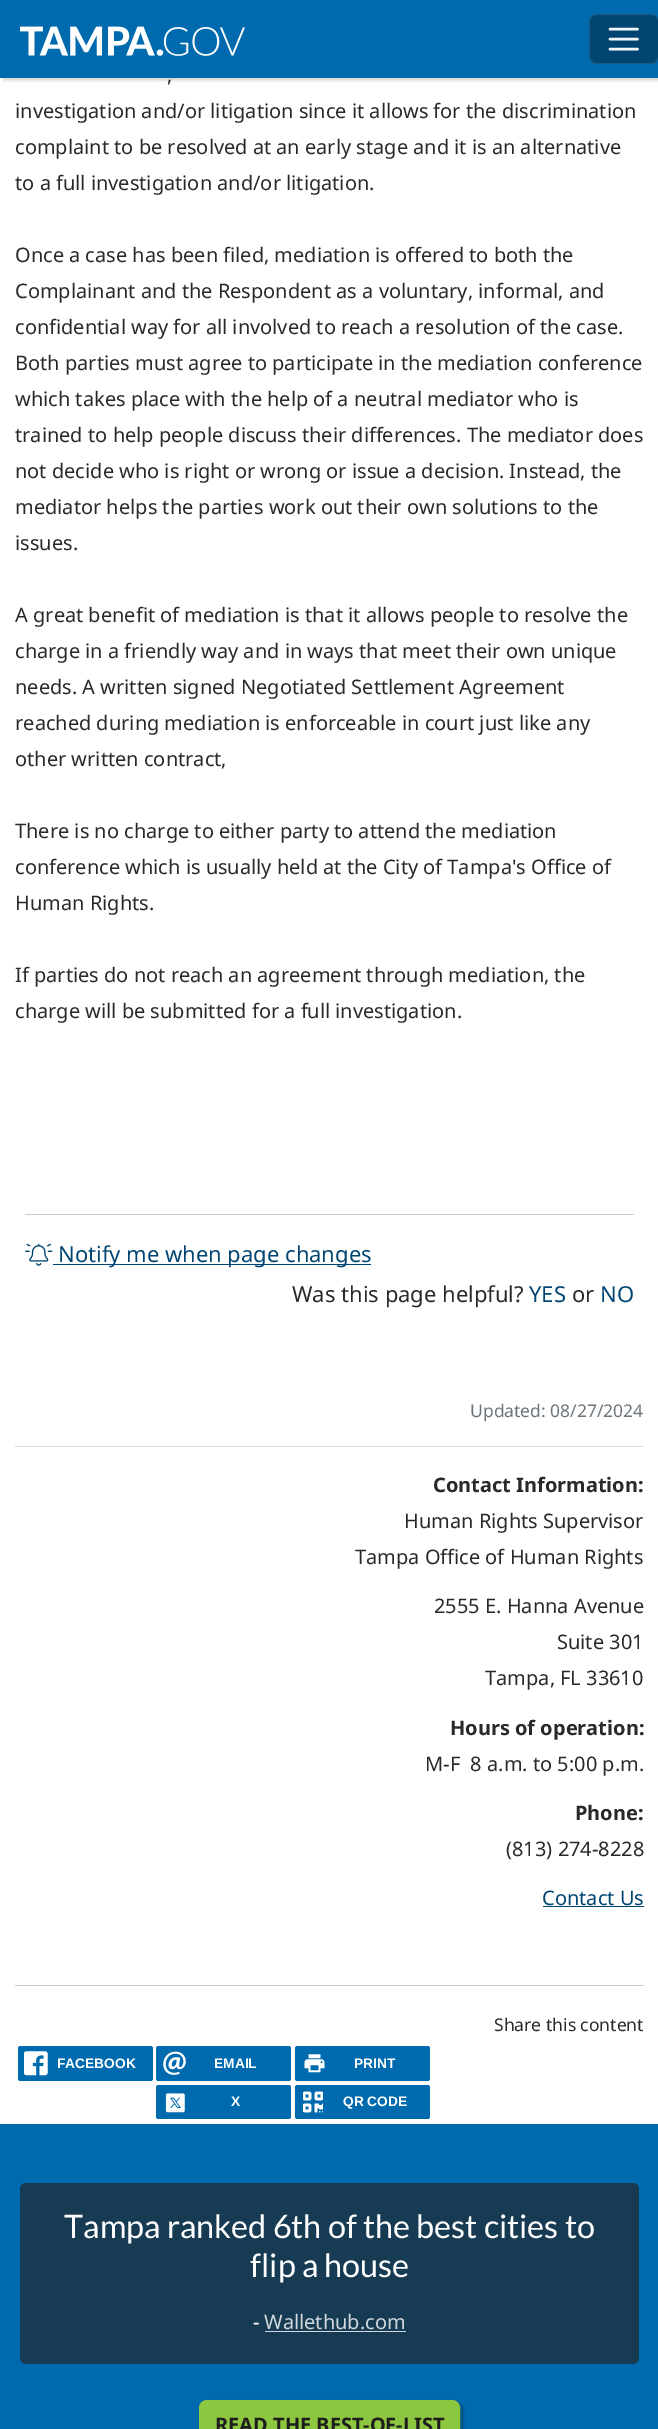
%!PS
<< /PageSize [658 2429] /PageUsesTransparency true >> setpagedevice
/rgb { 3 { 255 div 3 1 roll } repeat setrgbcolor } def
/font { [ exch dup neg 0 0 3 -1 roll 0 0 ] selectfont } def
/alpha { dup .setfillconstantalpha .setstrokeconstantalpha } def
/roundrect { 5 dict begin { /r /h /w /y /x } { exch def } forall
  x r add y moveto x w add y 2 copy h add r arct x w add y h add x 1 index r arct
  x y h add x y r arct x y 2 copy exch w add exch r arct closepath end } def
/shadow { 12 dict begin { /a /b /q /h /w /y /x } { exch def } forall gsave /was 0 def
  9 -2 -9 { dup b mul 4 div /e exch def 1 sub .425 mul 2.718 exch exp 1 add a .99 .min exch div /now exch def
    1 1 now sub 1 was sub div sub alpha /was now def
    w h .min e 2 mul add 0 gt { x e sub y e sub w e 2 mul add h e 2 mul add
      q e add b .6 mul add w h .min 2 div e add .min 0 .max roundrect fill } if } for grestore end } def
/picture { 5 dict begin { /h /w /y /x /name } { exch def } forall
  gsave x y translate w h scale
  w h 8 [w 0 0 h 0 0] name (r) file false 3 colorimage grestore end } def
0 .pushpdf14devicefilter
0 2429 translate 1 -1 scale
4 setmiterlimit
255 255 255 rgb
0 0 658 2429 rectfill
0 0 0 rgb
3 4 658 77 0 1 0.13 shadow
0 106 175 rgb
0 0 658 78 rectfill
(img/1.rgb) 20 26 225 30 picture
0 69 114 rgb
589 14 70 50 8 roundrect fill
0.1 alpha
255 255 255 rgb
589.5 14.5 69 49 7.5 roundrect stroke
1 alpha
242 246 248 rgb
2.5 setlinewidth
1 setlinecap
610 29 moveto 637.5 29 lineto 610 39 moveto 637.5 39 lineto 610 49 moveto 637.5 49 lineto stroke
202 202 202 rgb
25 1214 609 1 rectfill
(img/2.rgb) 25 1243 28 23 picture
[
  [53 1264 318 1 0 69 114]
  [15 1446 629 1 218 221 223]
  [543 1906 101 1 0 69 114]
  [15 1985 629 1 202 202 202]
] { aload pop rgb rectfill } forall
0 106 175 rgb
18 2046 135 35 2.5 roundrect fill
(img/3.rgb) 24 2051 24 25 picture
156 2046 135 35 2.5 roundrect fill
(img/4.rgb) 163 2051 23 24 picture
295 2046 135 35 2.5 roundrect fill
(img/5.rgb) 304 2054 21 19 picture
156 2085 135 34 2.5 roundrect fill
(img/6.rgb) 165 2093 20 20 picture
295 2085 135 34 2.5 roundrect fill
(img/7.rgb) 303 2091 20 22 picture
0 2124 658 305 rectfill
23 59 83 rgb
20 2183 619 181 6 roundrect fill
209 216 221 rgb
265 2331 141 1 rectfill
0 0 0 rgb
200 2401 264 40 9 1 0.2 shadow
141 198 63 rgb
199.5 2400.5 260 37 7.5 roundrect gsave fill grestore
1 setlinewidth
0 setlinecap
stroke
/NotoSans-Regular 20 font
41 41 41 rgb
[
  [(,) 167 82]
  [(investigation and/or litigation since it allows for the discrimination) 15 118]
  [(complaint to be resolved at an early stage and it is an alternative) 15 154]
  [(to a full investigation and/or litigation.) 15 190]
  [(Once a case has been filed, mediation is offered to both the) 15 262]
  [(Complainant and the Respondent as a voluntary, informal, and) 15 298]
  [(confidential way for all involved to reach a resolution of the case.) 15 334]
  [(Both parties must agree to participate in the mediation conference) 15 370]
  [(which takes place with the help of a neutral mediator who is) 15 406]
  [(trained to help people discuss their differences. The mediator does) 15 442]
  [(not decide who is right or wrong or issue a decision. Instead, the) 15 478]
  [(mediator helps the parties work out their own solutions to the) 15 514]
  [(issues.) 15 550]
  [(A great benefit of mediation is that it allows people to resolve the) 15 622]
  [(charge in a friendly way and in ways that meet their own unique) 15 658]
  [(needs. A written signed Negotiated Settlement Agreement) 15 694]
  [(reached during mediation is enforceable in court just like any) 15 730]
  [(other written contract,) 15 766]
  [(There is no charge to either party to attend the mediation) 15 838]
  [(conference which is usually held at the City of Tampa's Office of) 15 874]
  [(Human Rights.) 15 910]
  [(If parties do not reach an agreement through mediation, the) 15 982]
  [(charge will be submitted for a full investigation.) 15 1018]
] { aload pop moveto show } forall
/NotoSans-Regular 22 font
0 69 114 rgb
58 1262 moveto (Notify me when page changes) show
41 41 41 rgb
292 1302 moveto (Was this page helpful?) show
0 69 114 rgb
529 1302 moveto (YES) show
41 41 41 rgb
572 1302 moveto (or) show
0 69 114 rgb
600 1302 moveto (NO) show
/NotoSans-Regular 17.5 font
108 117 125 rgb
470 1417 moveto (Updated: 08/27/2024) show
/NotoSans-Bold 20 font
41 41 41 rgb
433 1492 moveto (Contact Information:) show
/NotoSans-Regular 20 font
[
  [(Human Rights Supervisor) 404 1528]
  [(Tampa Office of Human Rights) 355 1564]
  [(2555 E. Hanna Avenue) 434 1613]
  [(Suite 301) 557 1649]
  [(Tampa, FL 33610) 485 1685]
] { aload pop moveto show } forall
/NotoSans-Bold 20 font
450 1735 moveto (Hours of operation:) show
/NotoSans-Regular 20 font
425 1771 moveto (M-F  8 a.m. to 5:00 p.m.) show
/NotoSans-Bold 20 font
575 1820 moveto (Phone:) show
/NotoSans-Regular 20 font
506 1856 moveto (\(813\) 274-8228) show
0 69 114 rgb
542 1905 moveto (Contact Us) show
/NotoSans-Regular 17.5 font
41 41 41 rgb
494 2031 moveto (Share this content) show
/LiberationSans-Bold 13.75 font
255 255 255 rgb
[
  [(FACEBOOK) 57 2068]
  [(EMAIL) 214 2068]
  [(PRINT) 354 2068]
  [(X) 231 2106]
  [(QR CODE) 343 2106]
] { aload pop moveto show } forall
/Lato-Regular 32.4 font
64 2238 moveto (Tampa ranked 6th of the best cities to) show
250 2277 moveto (flip a house) show
/NotoSans-Regular 20 font
253 2329 moveto (-) show
209 216 221 rgb
264 2329 moveto (Wallethub.com) show
/NotoSans-Bold 20 font
29 29 29 rgb
215 2432 moveto (READ THE BEST-OF-LIST) show
.poppdf14devicefilter showpage
